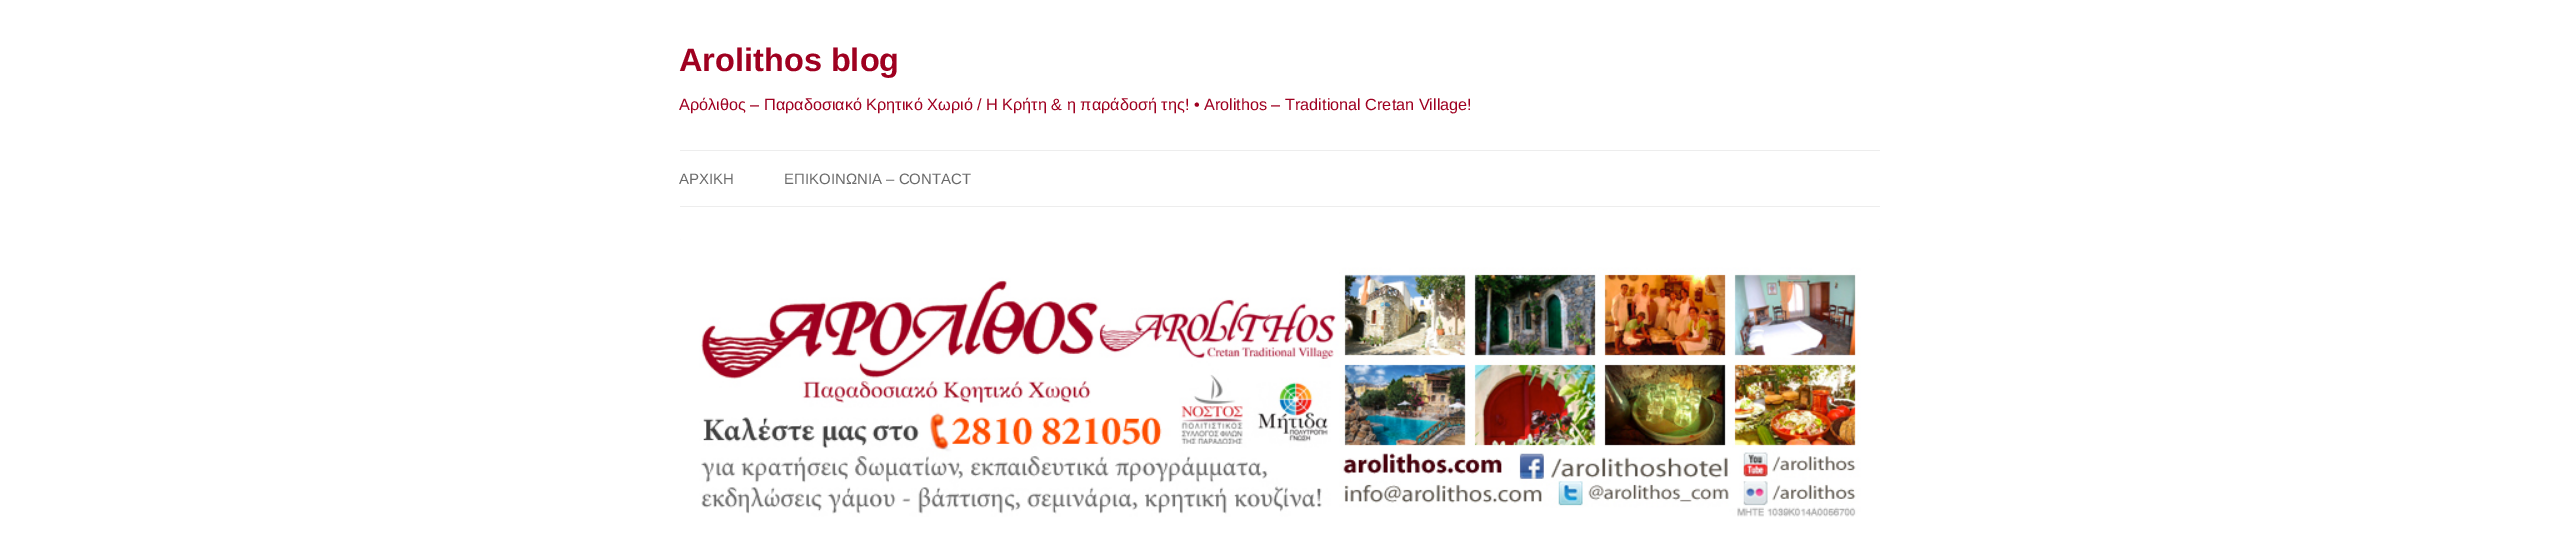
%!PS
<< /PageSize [2558 537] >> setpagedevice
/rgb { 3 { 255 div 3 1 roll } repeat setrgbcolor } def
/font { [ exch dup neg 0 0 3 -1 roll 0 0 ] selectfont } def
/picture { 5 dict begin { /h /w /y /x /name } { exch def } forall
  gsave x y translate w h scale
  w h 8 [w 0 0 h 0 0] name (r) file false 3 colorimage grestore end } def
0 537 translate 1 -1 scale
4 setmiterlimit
255 255 255 rgb
0 0 2558 537 rectfill
237 237 237 rgb
680 150 1200 1 rectfill
680 206 1200 1 rectfill
(img/1.rgb) 680 239 1200 278 picture
/LiberationSans-Bold 32.5 font
159 0 32 rgb
679 71 moveto (Arolithos blog) show
/LiberationSans-Regular 16.25 font
679 110 moveto (Αρόλιθος – Παραδοσιακό Κρητικό Χωριό / Η Κρήτη & η παράδοσή της! • Arolithos – Traditional Cretan Village!) show
/LiberationSans-Regular 15 font
106 106 106 rgb
679 184 moveto (ΑΡΧΙΚΗ) show
784 184 moveto (ΕΠΙΚΟΙΝΩΝΙΑ – CONTACT) show
showpage
